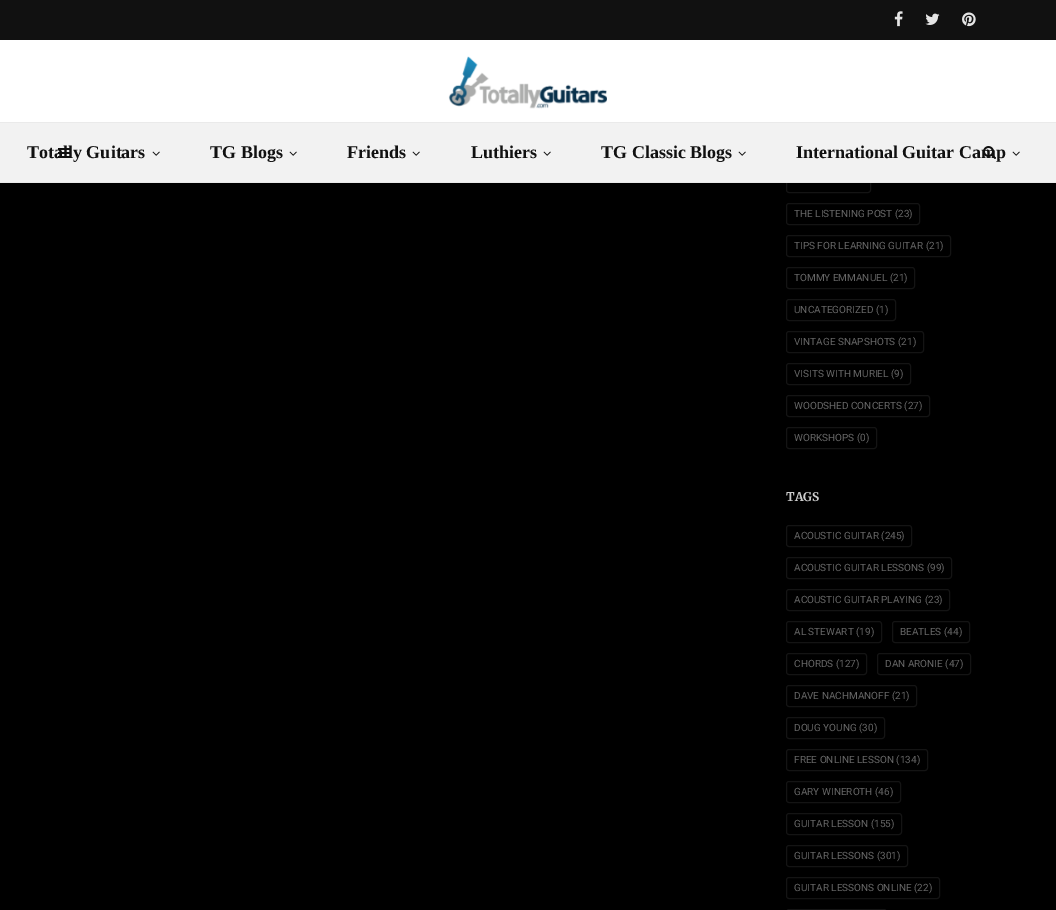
%!PS
<< /PageSize [1056 910] >> setpagedevice
/rgb { 3 { 255 div 3 1 roll } repeat setrgbcolor } def
/font { [ exch dup neg 0 0 3 -1 roll 0 0 ] selectfont } def
/roundrect { 5 dict begin { /r /h /w /y /x } { exch def } forall
  x r add y moveto x w add y 2 copy h add r arct x w add y h add x 1 index r arct
  x y h add x y r arct x y 2 copy exch w add exch r arct closepath end } def
/picture { 5 dict begin { /h /w /y /x /name } { exch def } forall
  gsave x y translate w h scale
  w h 8 [w 0 0 h 0 0] name (r) file false 3 colorimage grestore end } def
0 910 translate 1 -1 scale
4 setmiterlimit
0 0 0 rgb
0 0 1056 910 rectfill
255 255 255 rgb
0 40 1056 82 rectfill
20 20 20 rgb
786.5 171.5 84 21 2.5 roundrect stroke
234 234 234 rgb
0 182 1056 1 rectfill
0 122 1056 1 rectfill
(img/1.rgb) 448 56 159 53 picture
[
  [0 123 1056 59 242 242 242]
  [58 148 12 2 17 17 17]
  [58 152 12 2 17 17 17]
  [58 156 12 2 17 17 17]
] { aload pop rgb rectfill } forall
(img/2.rgb) 983 146 13 13 picture
0 0 1056 40 rectfill
(img/3.rgb) 894 11 9 16 picture
(img/4.rgb) 925 13 15 12 picture
(img/5.rgb) 962 12 14 15 picture
(img/6.rgb) 152 151 8 5 picture
(img/6.rgb) 289 151 8 5 picture
(img/6.rgb) 412 151 8 5 picture
(img/6.rgb) 543 151 8 5 picture
(img/6.rgb) 738 151 8 5 picture
(img/6.rgb) 1012 151 8 5 picture
20 20 20 rgb
786.5 203.5 133 21 2.5 roundrect stroke
786.5 235.5 164 21 2.5 roundrect stroke
786.5 267.5 128 21 2.5 roundrect stroke
786.5 299.5 109 21 2.5 roundrect stroke
786.5 331.5 137 21 2.5 roundrect stroke
786.5 363.5 124 21 2.5 roundrect stroke
786.5 395.5 143 21 2.5 roundrect stroke
786.5 427.5 90 21 2.5 roundrect stroke
786.5 525.5 125 21 2.5 roundrect stroke
786.5 557.5 165 21 2.5 roundrect stroke
786.5 589.5 163 21 2.5 roundrect stroke
786.5 621.5 95 21 2.5 roundrect stroke
892.5 621.5 77 21 2.5 roundrect stroke
786.5 653.5 80 21 2.5 roundrect stroke
877.5 653.5 93 21 2.5 roundrect stroke
786.5 685.5 130 21 2.5 roundrect stroke
786.5 717.5 98 21 2.5 roundrect stroke
786.5 749.5 141 21 2.5 roundrect stroke
786.5 781.5 114 21 2.5 roundrect stroke
786.5 813.5 115 21 2.5 roundrect stroke
786.5 845.5 121 21 2.5 roundrect stroke
786.5 877.5 153 21 2.5 roundrect stroke
786.5 909.5 100 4 2.5 roundrect stroke
/LiberationSerif-Bold 18 font
17 17 17 rgb
[
  [(Totally Guitars) 27 158]
  [(TG Blogs) 210 158]
  [(Friends) 347 158]
  [(Luthiers) 471 158]
  [(TG Classic Blogs) 601 158]
  [(International Guitar Camp) 796 158]
] { aload pop moveto show } forall
/Roboto-Regular 10 font
102 102 102 rgb
[
  [(THE LISTENING POST \(23\)) 794 217]
  [(TIPS FOR LEARNING GUITAR \(21\)) 794 249]
  [(TOMMY EMMANUEL \(21\)) 794 281]
  [(UNCATEGORIZED \(1\)) 794 313]
  [(VINTAGE SNAPSHOTS \(21\)) 794 345]
  [(VISITS WITH MURIEL \(9\)) 794 377]
  [(WOODSHED CONCERTS \(27\)) 794 409]
  [(WORKSHOPS \(0\)) 794 441]
] { aload pop moveto show } forall
/Merriweather-Light 12 font
204 204 204 rgb
786 501 moveto (TAGS) show
/Roboto-Regular 10 font
102 102 102 rgb
[
  [(ACOUSTIC GUITAR \(245\)) 794 539]
  [(ACOUSTIC GUITAR LESSONS \(99\)) 794 571]
  [(ACOUSTIC GUITAR PLAYING \(23\)) 794 603]
  [(AL STEWART \(19\)) 794 635]
  [(BEATLES \(44\)) 900 635]
  [(CHORDS \(127\)) 794 667]
  [(DAN ARONIE \(47\)) 885 667]
  [(DAVE NACHMANOFF \(21\)) 794 699]
  [(DOUG YOUNG \(30\)) 794 731]
  [(FREE ONLINE LESSON \(134\)) 794 763]
  [(GARY WINEROTH \(46\)) 794 795]
  [(GUITAR LESSON \(155\)) 794 827]
  [(GUITAR LESSONS \(301\)) 794 859]
  [(GUITAR LESSONS ONLINE \(22\)) 794 891]
] { aload pop moveto show } forall
showpage
